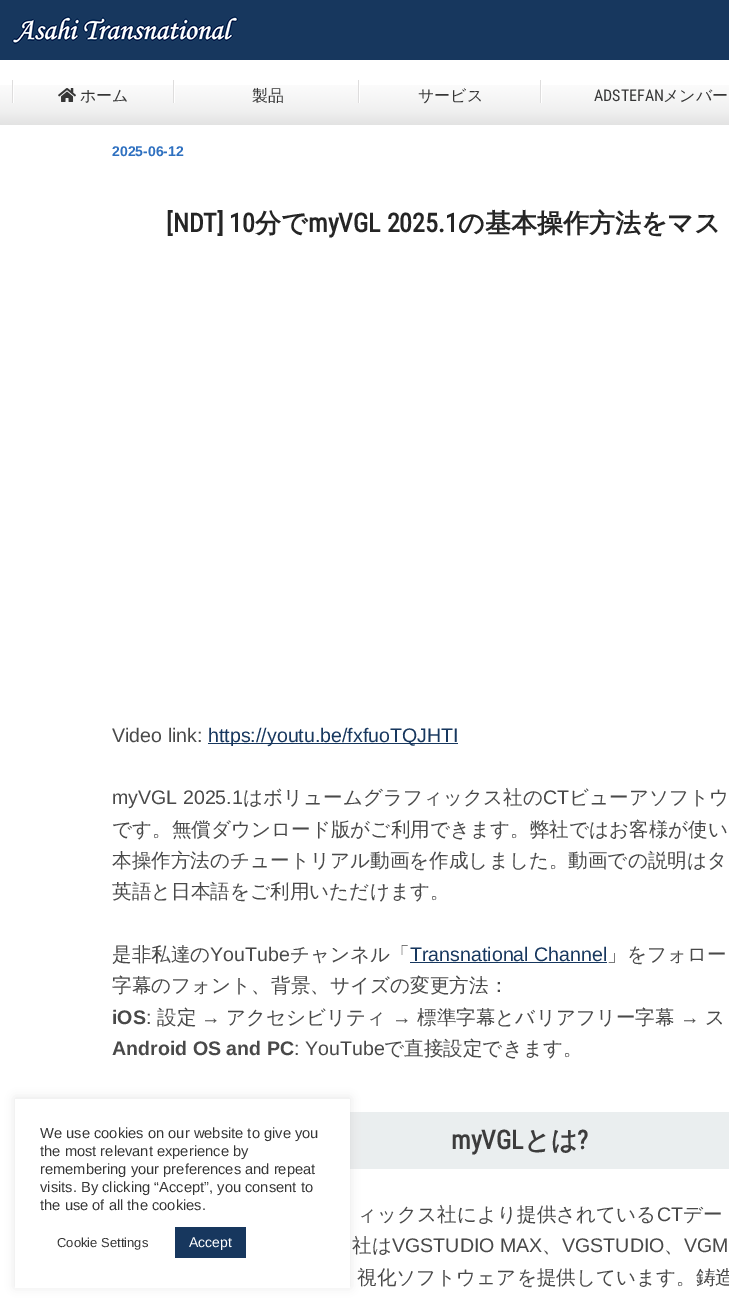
%!PS
<< /PageSize [729 1303] /PageUsesTransparency true >> setpagedevice
/rgb { 3 { 255 div 3 1 roll } repeat setrgbcolor } def
/font { [ exch dup neg 0 0 3 -1 roll 0 0 ] selectfont } def
/alpha { dup .setfillconstantalpha .setstrokeconstantalpha } def
/roundrect { 5 dict begin { /r /h /w /y /x } { exch def } forall
  x r add y moveto x w add y 2 copy h add r arct x w add y h add x 1 index r arct
  x y h add x y r arct x y 2 copy exch w add exch r arct closepath end } def
/shadow { 12 dict begin { /a /b /q /h /w /y /x } { exch def } forall gsave /was 0 def
  9 -2 -9 { dup b mul 4 div /e exch def 1 sub .425 mul 2.718 exch exp 1 add a .99 .min exch div /now exch def
    1 1 now sub 1 was sub div sub alpha /was now def
    w h .min e 2 mul add 0 gt { x e sub y e sub w e 2 mul add h e 2 mul add
      q e add b .6 mul add w h .min 2 div e add .min 0 .max roundrect fill } if } for grestore end } def
/picture { 5 dict begin { /h /w /y /x /name } { exch def } forall
  gsave x y translate w h scale
  w h 8 [w 0 0 h 0 0] name (r) file false 3 colorimage grestore end } def
0 .pushpdf14devicefilter
0 1303 translate 1 -1 scale
4 setmiterlimit
255 255 255 rgb
0 0 729 1303 rectfill
23 55 94 rgb
0 0 729 60 rectfill
(img/1.rgb) 12 16 226 28 picture
(img/2.rgb) 0 85 729 40 picture
(img/3.rgb) 12 80 2 23 picture
(img/3.rgb) 173 80 2 23 picture
(img/4.rgb) 58 88 18 14 picture
(img/3.rgb) 358 80 2 23 picture
(img/3.rgb) 540 80 2 23 picture
[
  [208 743 250 1 23 55 94]
  [410 962 197 1 23 55 94]
  [350 1112 379 57 234 238 239]
] { aload pop rgb rectfill } forall
172 171 171 rgb
15 1098 335 189 0 5 0.3 shadow
255 255 255 rgb
15 1099 335 189 rectfill
23 55 94 rgb
175 1227 71 31 rectfill
/WenQuanYiZenHei-Medium 16 font
54 54 54 rgb
[
  [(ホーム) 80 101]
  [(製品) 252 101]
  [(サービス) 418 101]
] { aload pop moveto show } forall
/RobotoCondensed-Regular 16 font
594 101 moveto (ADSTEFAN) show
/WenQuanYiZenHei-Medium 16 font
663 101 moveto (メンバー) show
/LiberationSans-Bold 14 font
46 112 192 rgb
112 156 moveto (2025-06-12) show
/RobotoCondensed-Bold 26 font
37 37 37 rgb
166 232 moveto ([NDT] 10) show
/WenQuanYiZenHei-Bold 26 font
255 232 moveto (分で) show
/RobotoCondensed-Bold 26 font
308 232 moveto (myVGL 2025.1) show
/WenQuanYiZenHei-Bold 26 font
458 232 moveto (の基本操作方法をマス) show
/LiberationSans-Regular 19.6 font
73 73 73 rgb
112 742 moveto (Video link:) show
23 55 94 rgb
208 742 moveto (https://youtu.be/fxfuoTQJHTI) show
73 73 73 rgb
112 804 moveto (myVGL 2025.1) show
/WenQuanYiZenHei-Medium 19.6 font
243 804 moveto (はボリュームグラフィックス社の) show
/LiberationSans-Regular 19.6 font
543 804 moveto (CT) show
/WenQuanYiZenHei-Medium 19.6 font
[
  [(ビューアソフトウ) 569 804]
  [(です。無償ダウンロード版がご利用できます。弊社ではお客様が使い) 112 836]
  [(本操作方法のチュートリアル動画を作成しました。動画での説明はタ) 112 867]
  [(英語と日本語をご利用いただけます。) 112 898]
  [(是非私達の) 112 961]
] { aload pop moveto show } forall
/LiberationSans-Regular 19.6 font
210 961 moveto (YouTube) show
/WenQuanYiZenHei-Medium 19.6 font
290 961 moveto (チャンネル「) show
/LiberationSans-Regular 19.6 font
23 55 94 rgb
410 961 moveto (Transnational Channel) show
/WenQuanYiZenHei-Medium 19.6 font
73 73 73 rgb
607 961 moveto (」をフォロー) show
112 992 moveto (字幕のフォント、背景、サイズの変更方法：) show
/LiberationSans-Bold 19.6 font
112 1024 moveto (iOS) show
/LiberationSans-Regular 19.6 font
146 1024 moveto (:) show
/WenQuanYiZenHei-Medium 19.6 font
157 1024 moveto (設定) show
/LiberationSans-Regular 19.6 font
201 1024 moveto (→) show
/WenQuanYiZenHei-Medium 19.6 font
226 1024 moveto (アクセシビリティ) show
/LiberationSans-Regular 19.6 font
392 1024 moveto (→) show
/WenQuanYiZenHei-Medium 19.6 font
417 1024 moveto (標準字幕とバリアフリー字幕) show
/LiberationSans-Regular 19.6 font
680 1024 moveto (→) show
/WenQuanYiZenHei-Medium 19.6 font
705 1024 moveto (ス) show
/LiberationSans-Bold 19.6 font
112 1055 moveto (Android OS and PC) show
/LiberationSans-Regular 19.6 font
294 1055 moveto (: YouTube) show
/WenQuanYiZenHei-Medium 19.6 font
384 1055 moveto (で直接設定できます。) show
/RobotoCondensed-Bold 26 font
60 60 60 rgb
451 1149 moveto (myVGL) show
/WenQuanYiZenHei-Bold 26 font
524 1149 moveto (とは) show
/RobotoCondensed-Bold 26 font
577 1149 moveto (?) show
/WenQuanYiZenHei-Medium 19.6 font
73 73 73 rgb
357 1221 moveto (ィックス社により提供されている) show
/LiberationSans-Regular 19.6 font
657 1221 moveto (CT) show
/WenQuanYiZenHei-Medium 19.6 font
683 1221 moveto (デー) show
352 1252 moveto (社は) show
/LiberationSans-Regular 19.6 font
392 1252 moveto (VGSTUDIO MAX) show
/WenQuanYiZenHei-Medium 19.6 font
542 1252 moveto (、) show
/LiberationSans-Regular 19.6 font
562 1252 moveto (VGSTUDIO) show
/WenQuanYiZenHei-Medium 19.6 font
664 1252 moveto (、) show
/LiberationSans-Regular 19.6 font
684 1252 moveto (VGM) show
/WenQuanYiZenHei-Medium 19.6 font
357 1284 moveto (視化ソフトウェアを提供しています。鋳造) show
/LiberationSans-Regular 14.7 font
54 54 54 rgb
[
  [(We use cookies on our website to give you) 40 1138]
  [(the most relevant experience by) 40 1156]
  [(remembering your preferences and repeat) 40 1174]
  [(visits. By clicking “Accept”, you consent to) 40 1192]
  [(the use of all the cookies.) 40 1210]
] { aload pop moveto show } forall
/LiberationSans-Regular 13 font
57 1247 moveto (Cookie Settings) show
/LiberationSans-Regular 14 font
255 255 255 rgb
189 1247 moveto (Accept) show
.poppdf14devicefilter showpage
